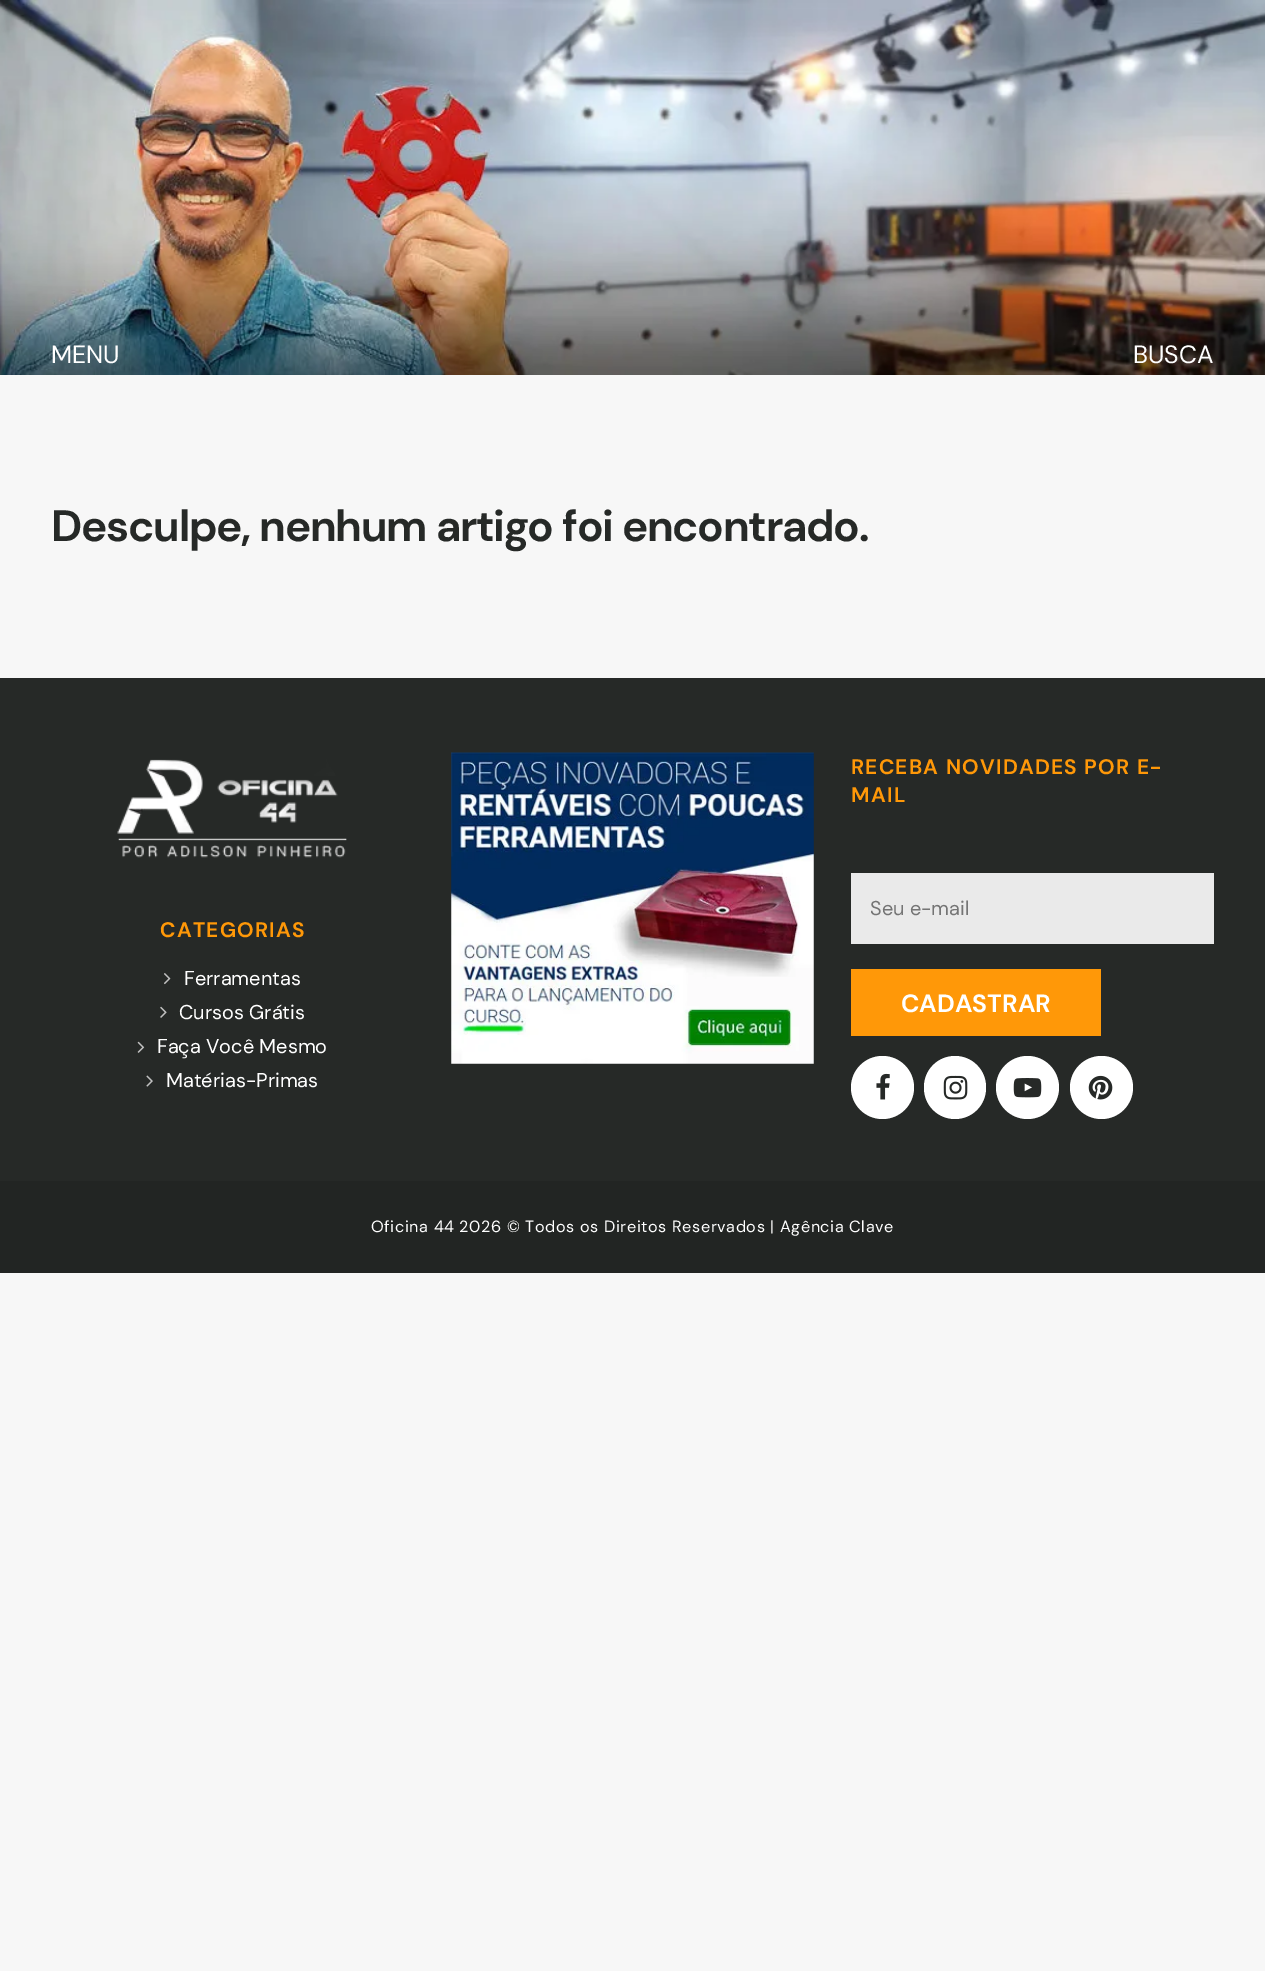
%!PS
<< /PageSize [1265 1971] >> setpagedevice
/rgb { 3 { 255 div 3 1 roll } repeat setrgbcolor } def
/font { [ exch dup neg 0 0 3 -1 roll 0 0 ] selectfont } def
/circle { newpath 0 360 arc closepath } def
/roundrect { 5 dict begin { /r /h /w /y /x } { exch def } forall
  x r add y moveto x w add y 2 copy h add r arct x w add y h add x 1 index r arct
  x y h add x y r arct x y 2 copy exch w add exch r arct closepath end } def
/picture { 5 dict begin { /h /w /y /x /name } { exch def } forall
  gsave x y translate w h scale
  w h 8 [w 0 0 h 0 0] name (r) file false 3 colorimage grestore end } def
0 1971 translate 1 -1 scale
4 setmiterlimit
247 247 247 rgb
0 0 1265 1971 rectfill
(img/1.rgb) 0 0 1265 375 picture
38 41 39 rgb
0 678 1265 503 rectfill
(img/2.rgb) 117 759 230 99 picture
(img/3.rgb) 164 973 7 12 picture
(img/4.rgb) 160 1006 7 12 picture
(img/5.rgb) 137 1041 8 12 picture
(img/6.rgb) 146 1075 7 12 picture
(img/7.rgb) 451 752 363 312 picture
234 234 234 rgb
851 873 363 71 rectfill
255 152 8 rgb
851 969 250 67 rectfill
255 255 255 rgb
882.5 1087.5 31.5 circle fill
(img/8.rgb) 876 1073 14 27 picture
924 1056 62 63 31 roundrect fill
(img/9.rgb) 943 1075 25 25 picture
1027.5 1087.5 31.5 circle fill
(img/10.rgb) 1013 1078 29 20 picture
1101.5 1087.5 31.5 circle fill
(img/11.rgb) 1088 1075 25 25 picture
34 37 35 rgb
0 1181 1265 92 rectfill
/DMSans-Regular 25 font
255 255 255 rgb
51 363 moveto (MENU) show
1133 363 moveto (BUSCA) show
/DMSans-Bold 44 font
38 41 39 rgb
51 541 moveto -1.25 0 (Desculpe, nenhum artigo foi encontrado.) ashow
/DMSans-Bold 21 font
255 152 8 rgb
160 937 moveto 1.25 0 (CATEGORIAS) ashow
/DMSans-Regular 20 font
255 255 255 rgb
[
  [(Ferramentas) 184 985]
  [(Cursos Grátis) 179 1019]
  [(Faça Você Mesmo) 157 1053]
  [(Matérias-Primas) 166 1087]
] { aload pop moveto show } forall
/DMSans-Bold 21 font
255 152 8 rgb
851 774 moveto 1.25 0 (RECEBA NOVIDADES POR E-) ashow
851 802 moveto 1.25 0 (MAIL) ashow
/DMSans-Regular 20 font
117 117 117 rgb
870 915 moveto (Seu e-mail) show
/DMSans-Bold 25 font
255 255 255 rgb
901 1012 moveto (CADASTRAR) show
/DMSans-Regular 16.25 font
371 1232 moveto 0.62 0 (Oficina 44 2026 © Todos os Direitos Reservados | Agência Clave) ashow
showpage
